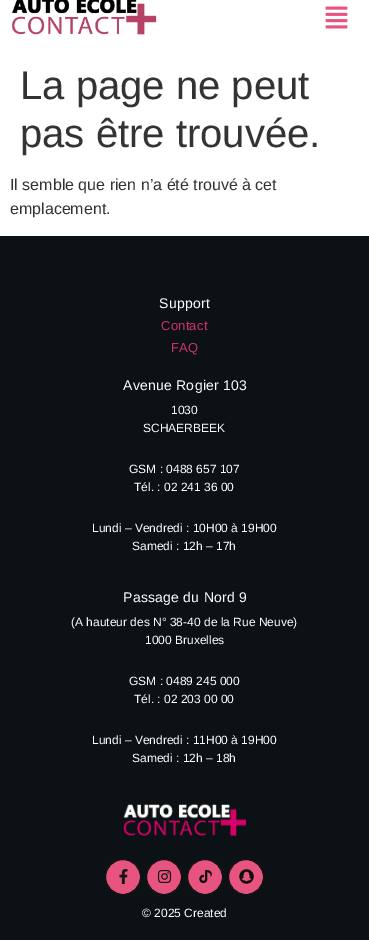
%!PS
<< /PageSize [369 940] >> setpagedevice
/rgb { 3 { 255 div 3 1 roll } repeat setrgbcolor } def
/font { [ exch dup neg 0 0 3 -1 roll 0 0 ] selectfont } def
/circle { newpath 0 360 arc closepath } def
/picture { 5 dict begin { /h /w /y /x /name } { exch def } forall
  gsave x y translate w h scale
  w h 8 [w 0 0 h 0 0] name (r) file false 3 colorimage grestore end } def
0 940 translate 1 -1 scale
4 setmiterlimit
255 255 255 rgb
0 0 369 940 rectfill
(img/1.rgb) 12 0 145 35 picture
(img/2.rgb) 325 6 23 23 picture
12 17 21 rgb
0 236 369 704 rectfill
(img/3.rgb) 123 803 124 33 picture
231 84 128 rgb
123 877 17.5 circle gsave fill grestore
16 16 16 rgb
stroke
(img/4.rgb) 119 869 9 15 picture
231 84 128 rgb
164 877 17.5 circle gsave fill grestore
16 16 16 rgb
stroke
(img/5.rgb) 158 870 14 13 picture
231 84 128 rgb
205 877 17.5 circle gsave fill grestore
16 16 16 rgb
stroke
(img/6.rgb) 199 870 13 13 picture
231 84 128 rgb
246 877 17.5 circle gsave fill grestore
16 16 16 rgb
stroke
(img/7.rgb) 239 869 15 15 picture
/LiberationSans-Regular 40 font
51 51 51 rgb
20 99 moveto (La page ne peut) show
20 147 moveto (pas être trouvée.) show
/LiberationSans-Regular 16 font
10 190 moveto (Il semble que rien n’a été trouvé à cet) show
10 214 moveto (emplacement.) show
/LiberationSans-Regular 14 font
255 255 255 rgb
159 308 moveto 0.25 0 (Support) ashow
/LiberationSans-Regular 13 font
204 51 102 rgb
161 330 moveto 0.25 0 (Contact) ashow
171 352 moveto 0.25 0 (FAQ) ashow
/LiberationSans-Regular 14 font
255 255 255 rgb
123 390 moveto 0.25 0 (Avenue Rogier 103) ashow
/LiberationSans-Regular 12 font
[
  [(1030) 171 414]
  [(SCHAERBEEK) 143 432]
  [(GSM : 0488 657 107) 129 473]
  [(Tél. : 02 241 36 00) 134 491]
  [(Lundi – Vendredi : 10H00 à 19H00) 92 532]
  [(Samedi : 12h – 17h) 132 550]
] { aload pop moveto show } forall
/LiberationSans-Regular 14 font
123 602 moveto 0.25 0 (Passage du Nord 9) ashow
/LiberationSans-Regular 12 font
[
  [(\(A hauteur des N° 38-40 de la Rue Neuve\)) 71 626]
  [(1000 Bruxelles) 145 644]
  [(GSM : 0489 245 000) 129 685]
  [(Tél. : 02 203 00 00) 134 703]
  [(Lundi – Vendredi : 11H00 à 19H00) 92 744]
  [(Samedi : 12h – 18h) 132 762]
  [(© 2025 Created) 142 917]
] { aload pop moveto show } forall
showpage
